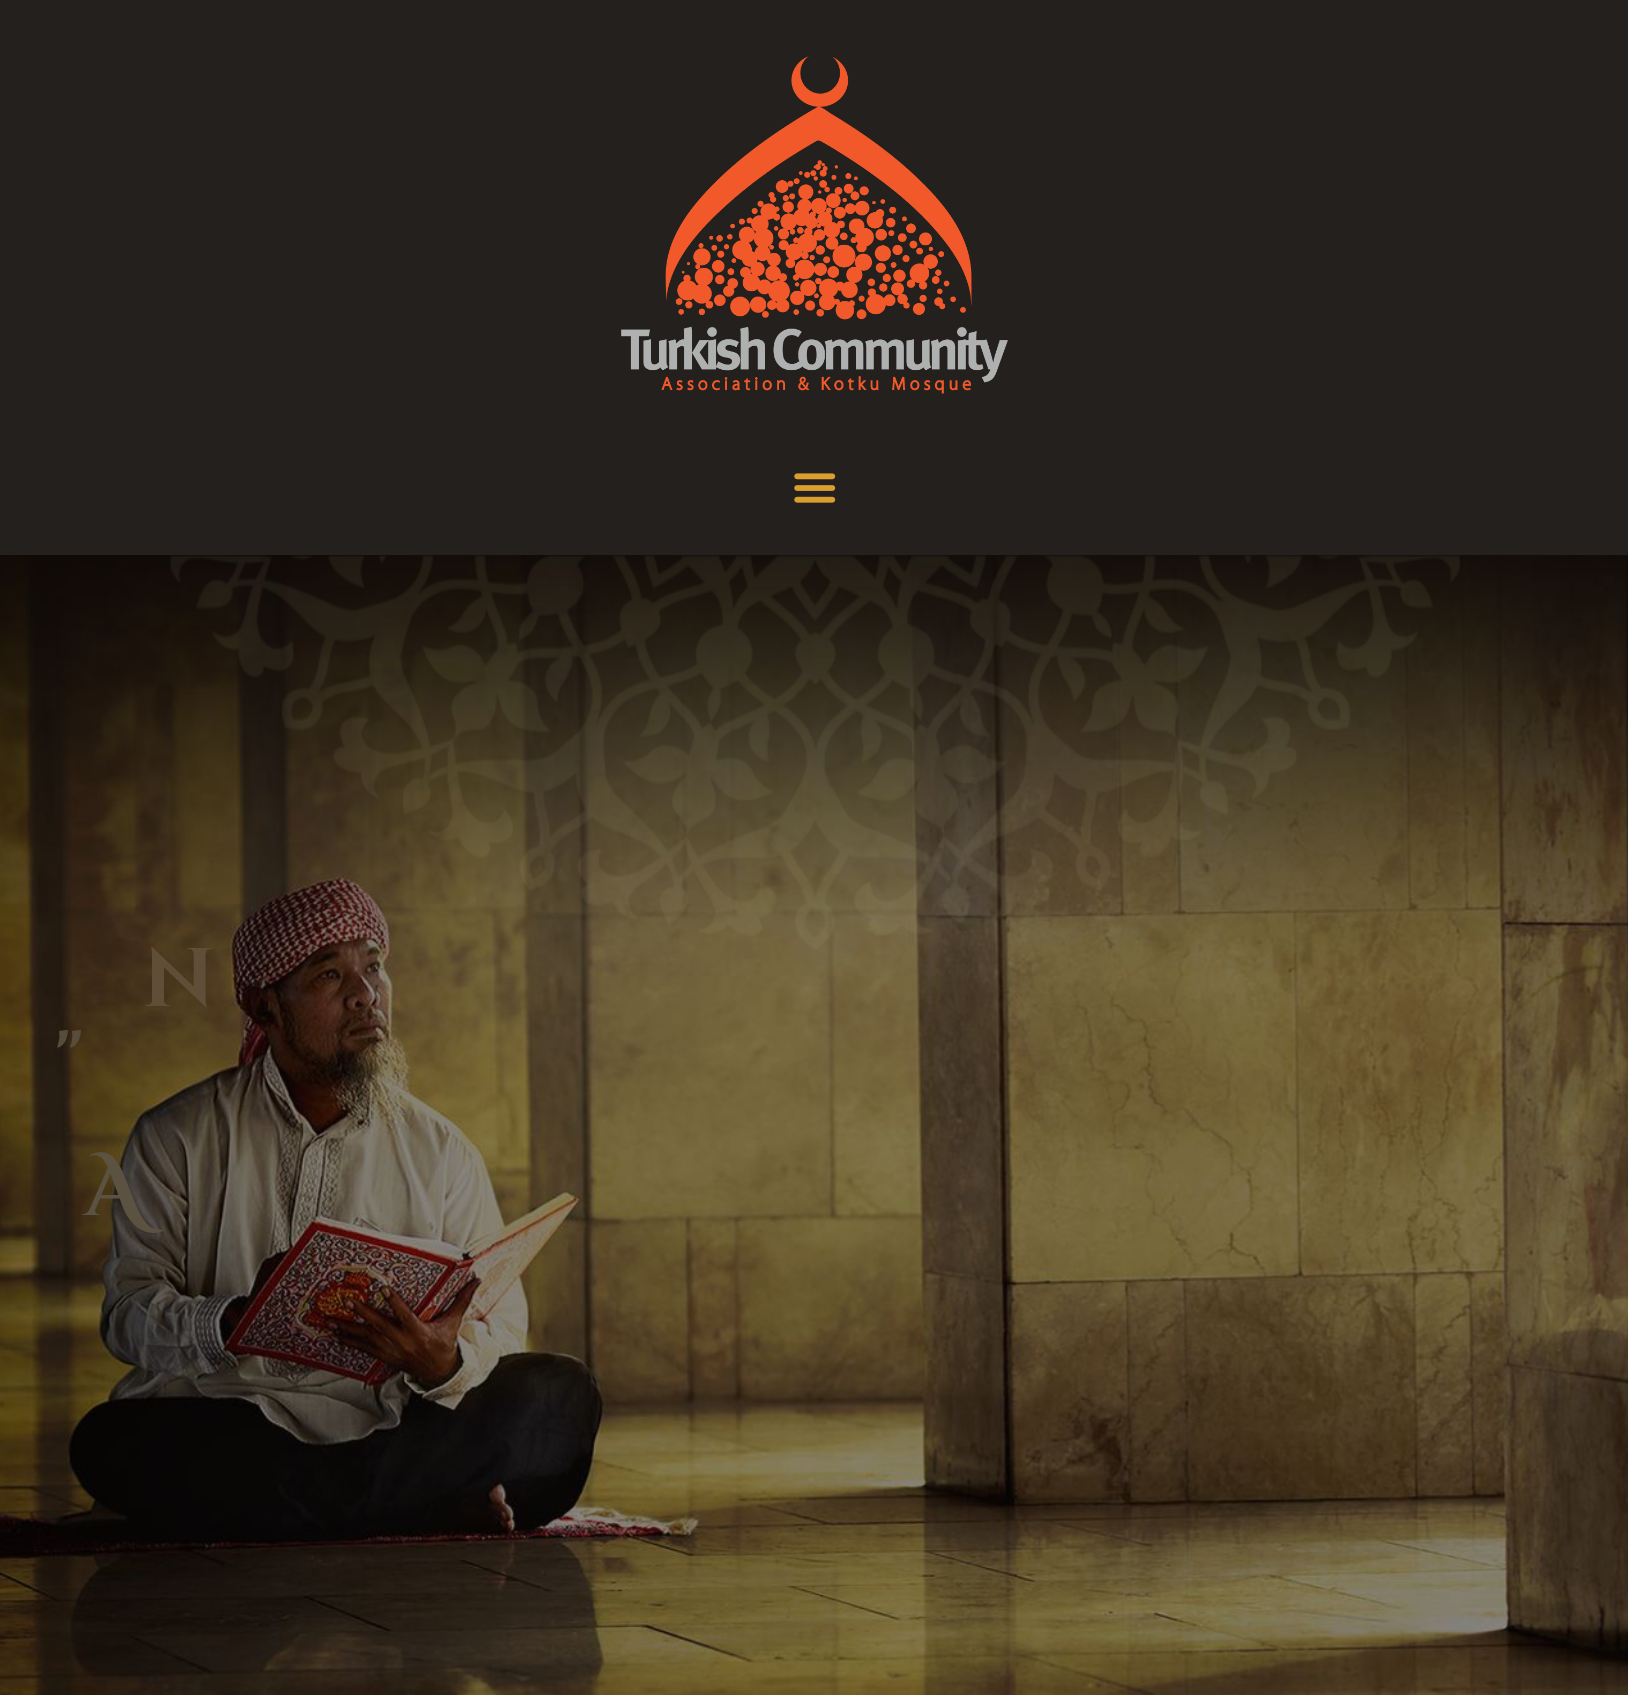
%!PS
<< /PageSize [1628 1695] >> setpagedevice
/rgb { 3 { 255 div 3 1 roll } repeat setrgbcolor } def
/font { [ exch dup neg 0 0 3 -1 roll 0 0 ] selectfont } def
/picture { 5 dict begin { /h /w /y /x /name } { exch def } forall
  gsave x y translate w h scale
  w h 8 [w 0 0 h 0 0] name (r) file false 3 colorimage grestore end } def
0 1695 translate 1 -1 scale
4 setmiterlimit
35 32 29 rgb
0 0 1628 1695 rectfill
(img/1.rgb) 621 56 387 338 picture
(img/2.rgb) 794 473 42 30 picture
(img/3.rgb) 0 555 1628 1140 picture
(img/4.rgb) 170 555 1290 395 picture
/CinzelDecorative-Bold 83 font
95 79 57 rgb
143 1006 moveto (n) show
88 76 61 rgb
54 1089 moveto (") show
91 82 66 rgb
84 1215 moveto (A) show
showpage
